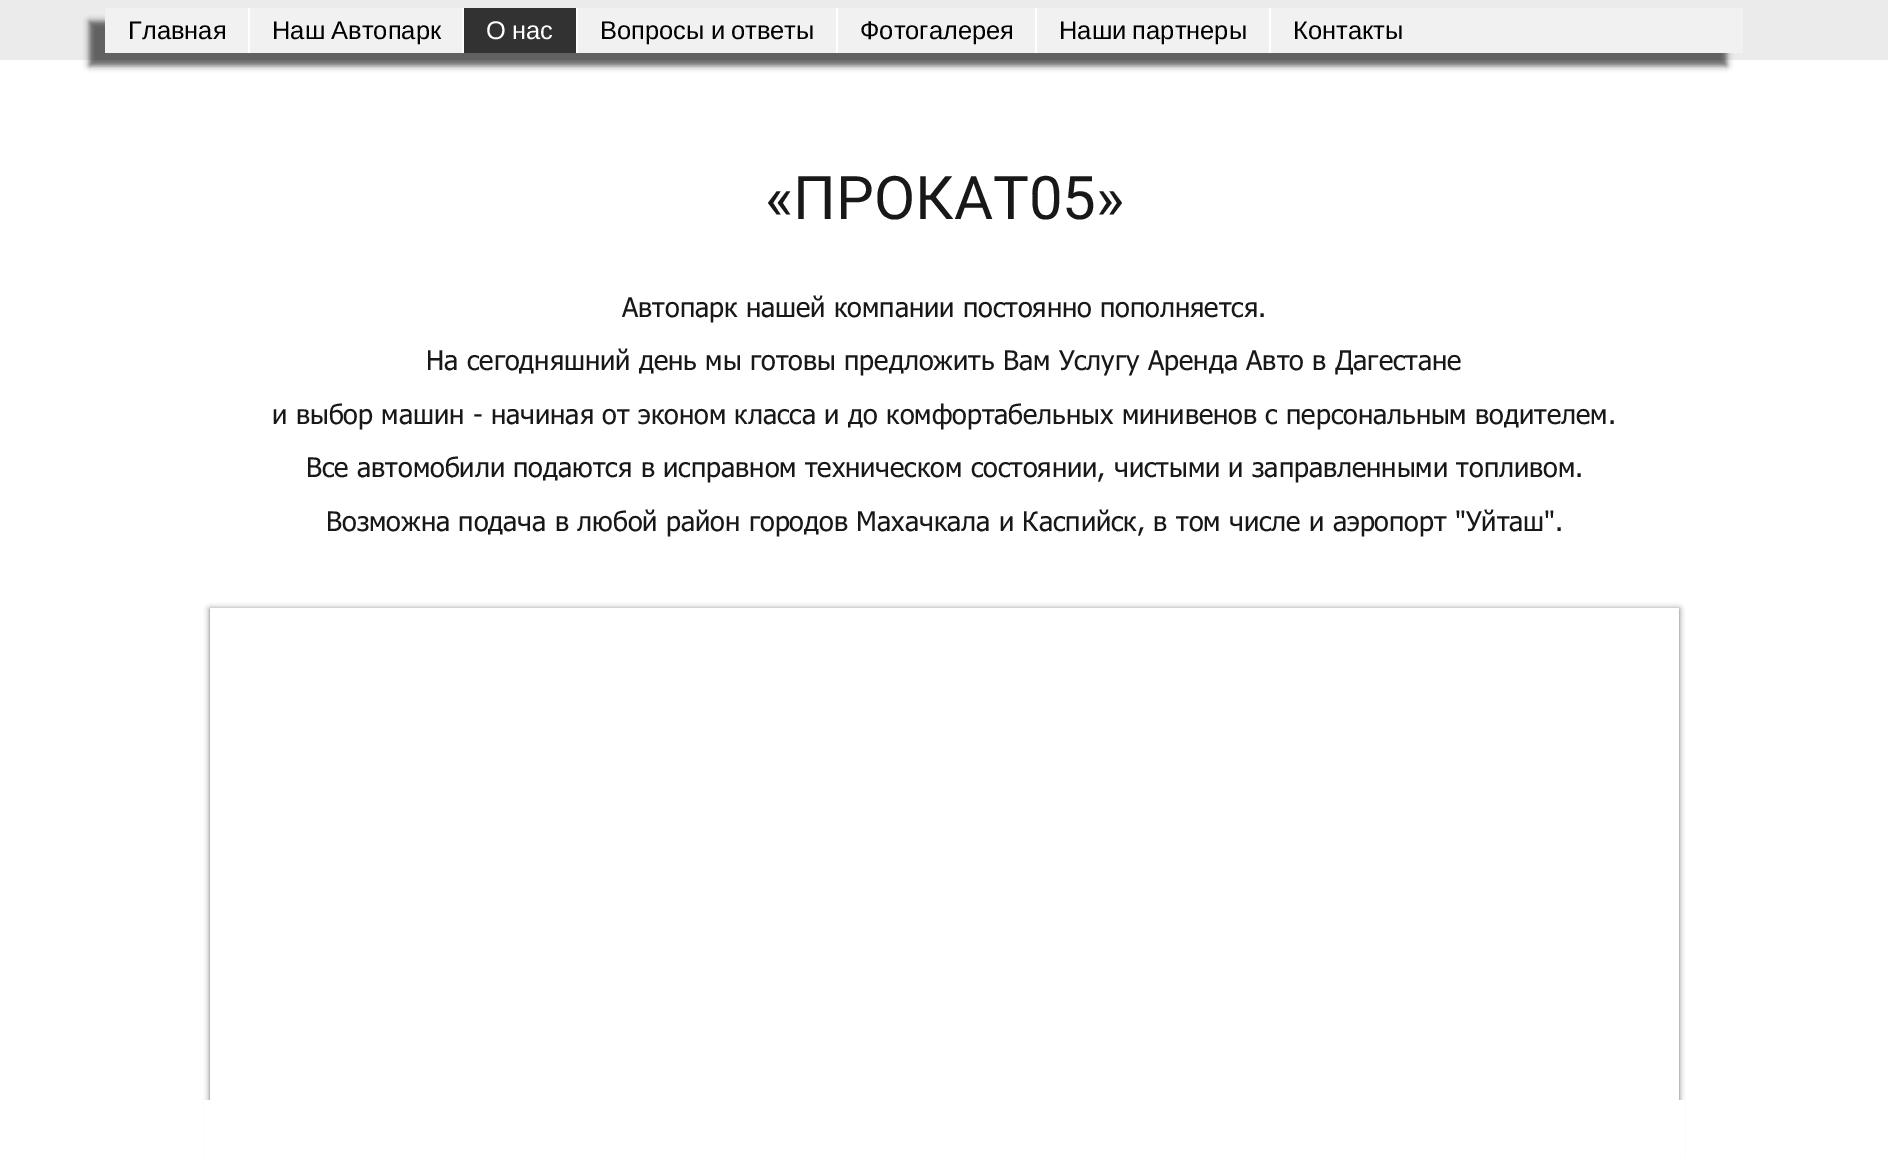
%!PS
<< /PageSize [1888 1159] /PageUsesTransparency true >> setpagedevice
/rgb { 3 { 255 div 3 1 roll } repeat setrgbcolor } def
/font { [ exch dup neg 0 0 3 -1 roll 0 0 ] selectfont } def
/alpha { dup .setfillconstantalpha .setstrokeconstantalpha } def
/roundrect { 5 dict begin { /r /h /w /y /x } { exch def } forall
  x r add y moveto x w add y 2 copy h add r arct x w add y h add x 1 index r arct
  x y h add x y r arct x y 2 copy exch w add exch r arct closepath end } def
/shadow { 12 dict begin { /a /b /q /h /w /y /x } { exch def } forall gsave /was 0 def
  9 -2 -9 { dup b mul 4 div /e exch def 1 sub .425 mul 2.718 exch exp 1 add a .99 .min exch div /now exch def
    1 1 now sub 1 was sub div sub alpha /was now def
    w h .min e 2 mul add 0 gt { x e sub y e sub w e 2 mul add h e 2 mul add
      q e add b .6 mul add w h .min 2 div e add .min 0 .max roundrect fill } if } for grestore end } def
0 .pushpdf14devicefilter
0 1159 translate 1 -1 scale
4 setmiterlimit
255 255 255 rgb
0 0 1888 1159 rectfill
235 235 235 rgb
0 0 1888 60 rectfill
0 0 0 rgb
89 21 1638 45 0 3 0.6 shadow
[
  [105 8 1638 45 241 241 241]
  [248 8 2 45 255 255 255]
  [464 8 112 45 50 50 50]
  [462 8 2 45 255 255 255]
  [576 8 2 45 255 255 255]
  [836 8 2 45 255 255 255]
  [1035 8 2 45 255 255 255]
  [1269 8 2 45 255 255 255]
] { aload pop rgb rectfill } forall
gsave
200 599 moveto 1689 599 lineto 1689 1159 lineto 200 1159 lineto closepath 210 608 moveto 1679 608 lineto 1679 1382 lineto 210 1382 lineto closepath eoclip newpath
0 0 0 rgb
210 609 1469 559 0 3 0.6 shadow
grestore
204 1100 1481 59 rectfill
/LiberationSans-Regular 25.5 font
0 0 0 rgb
128 39 moveto (Главная) show
272 39 moveto -1 0 32 (Наш Автопарк) widthshow
255 255 255 rgb
486 39 moveto -1 0 32 (О нас) widthshow
0 0 0 rgb
600 39 moveto -1 0 32 (Вопросы и ответы) widthshow
860 39 moveto (Фотогалерея) show
1059 39 moveto -1 0 32 (Наши партнеры) widthshow
1293 39 moveto (Контакты) show
/Roboto-Regular 60 font
24 24 24 rgb
765 219 moveto («ПРОКАТ05») show
/tahoma-Regular 27 font
[
  [(Автопарк нашей компании постоянно пополняется.) 622 317]
  [(На сегодняшний день мы готовы предложить Вам Услугу Аренда Авто в Дагестане) 426 370]
  [(и выбор машин - начиная от эконом класса и до комфортабельных минивенов с персональным водителем.) 272 424]
  [(Все автомобили подаются в исправном техническом состоянии, чистыми и заправленными топливом.) 306 477]
  [(Возможна подача в любой район городов Махачкала и Каспийск, в том числе и аэропорт "Уйташ".) 326 531]
] { aload pop moveto show } forall
.poppdf14devicefilter showpage
